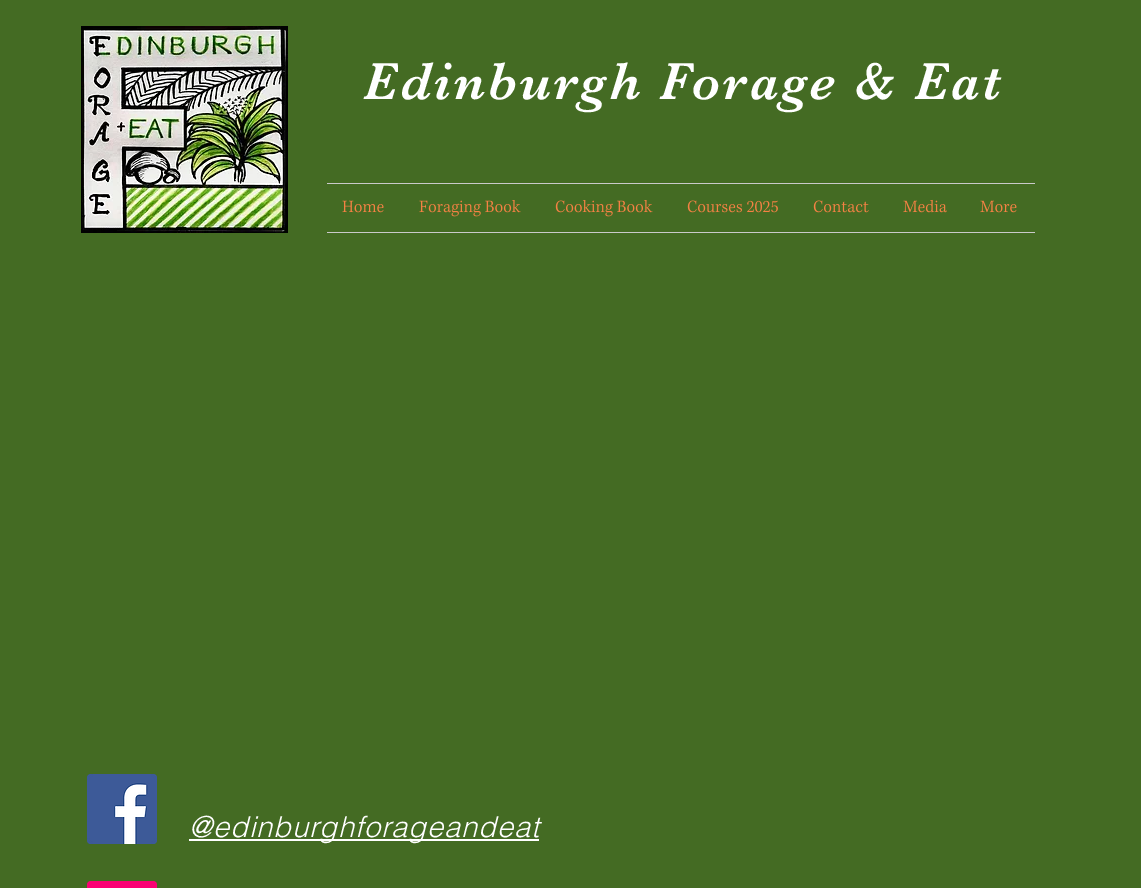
%!PS
<< /PageSize [1141 888] >> setpagedevice
/rgb { 3 { 255 div 3 1 roll } repeat setrgbcolor } def
/font { [ exch dup neg 0 0 3 -1 roll 0 0 ] selectfont } def
/picture { 5 dict begin { /h /w /y /x /name } { exch def } forall
  gsave x y translate w h scale
  w h 8 [w 0 0 h 0 0] name (r) file false 3 colorimage grestore end } def
0 888 translate 1 -1 scale
4 setmiterlimit
68 107 35 rgb
0 0 1141 888 rectfill
(img/1.rgb) 81 26 207 207 picture
202 202 202 rgb
327 183 708 1 rectfill
327 232 708 1 rectfill
(img/2.rgb) 342 200 42 13 picture
(img/3.rgb) 419 200 102 17 picture
(img/4.rgb) 555 200 98 17 picture
(img/5.rgb) 687 200 91 13 picture
(img/6.rgb) 813 200 56 13 picture
(img/7.rgb) 903 199 44 14 picture
(img/8.rgb) 980 200 37 13 picture
(img/9.rgb) 87 774 70 70 picture
(img/10.rgb) 87 881 70 7 picture
255 255 255 rgb
189 839 350 2 rectfill
/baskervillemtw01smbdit-Regular 54 font
363 99 moveto 2.7 0 (Edinburgh Forage & Eat) ashow
/helvetica-LightItalic 29 font
189 837 moveto 0.9 0 (@edinburghforageandeat) ashow
showpage
